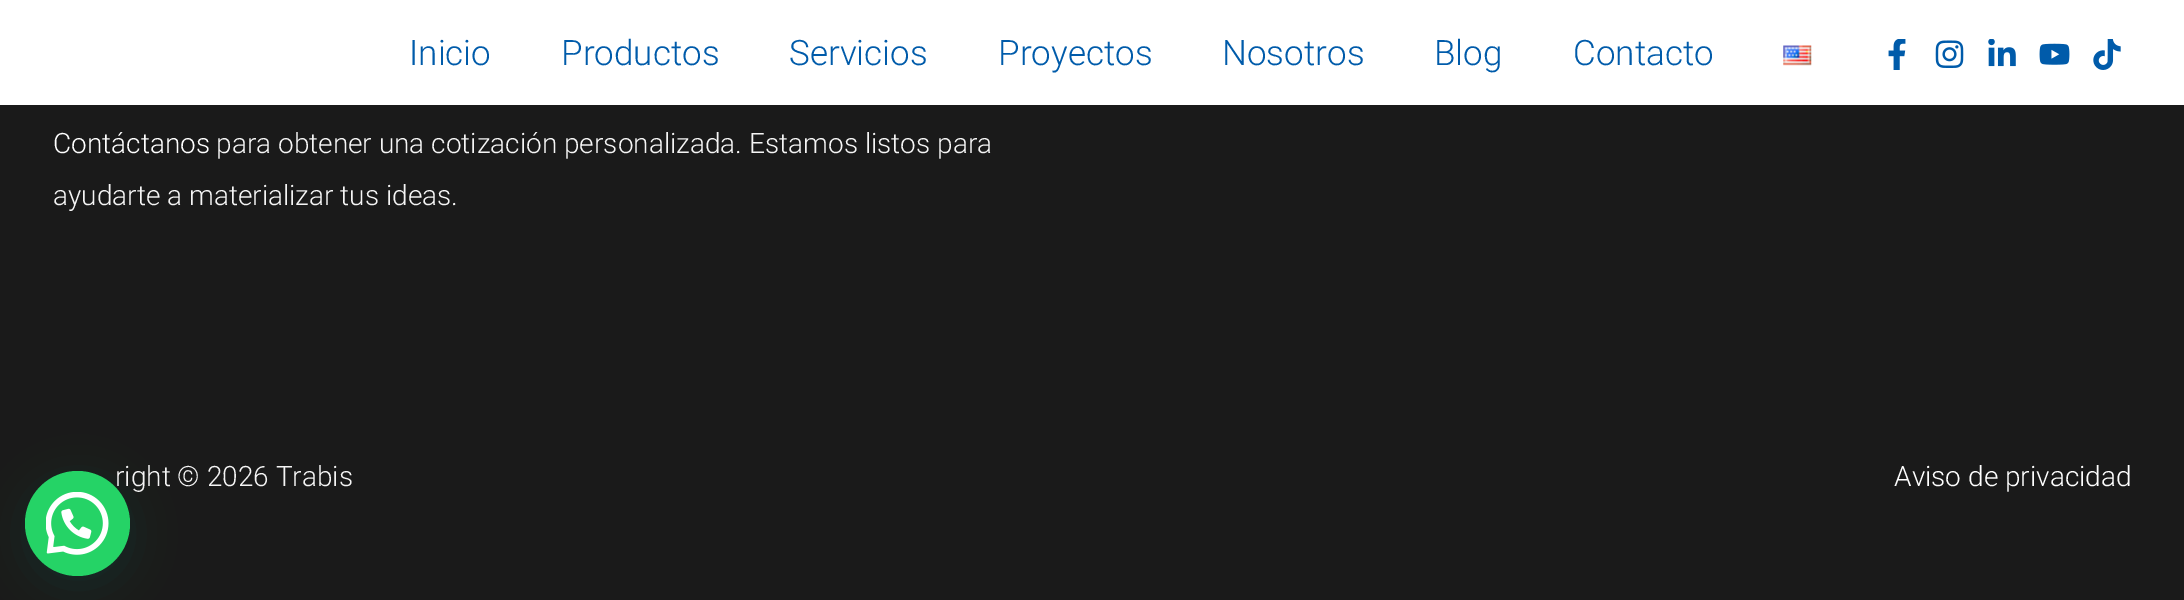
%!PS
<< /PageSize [2184 600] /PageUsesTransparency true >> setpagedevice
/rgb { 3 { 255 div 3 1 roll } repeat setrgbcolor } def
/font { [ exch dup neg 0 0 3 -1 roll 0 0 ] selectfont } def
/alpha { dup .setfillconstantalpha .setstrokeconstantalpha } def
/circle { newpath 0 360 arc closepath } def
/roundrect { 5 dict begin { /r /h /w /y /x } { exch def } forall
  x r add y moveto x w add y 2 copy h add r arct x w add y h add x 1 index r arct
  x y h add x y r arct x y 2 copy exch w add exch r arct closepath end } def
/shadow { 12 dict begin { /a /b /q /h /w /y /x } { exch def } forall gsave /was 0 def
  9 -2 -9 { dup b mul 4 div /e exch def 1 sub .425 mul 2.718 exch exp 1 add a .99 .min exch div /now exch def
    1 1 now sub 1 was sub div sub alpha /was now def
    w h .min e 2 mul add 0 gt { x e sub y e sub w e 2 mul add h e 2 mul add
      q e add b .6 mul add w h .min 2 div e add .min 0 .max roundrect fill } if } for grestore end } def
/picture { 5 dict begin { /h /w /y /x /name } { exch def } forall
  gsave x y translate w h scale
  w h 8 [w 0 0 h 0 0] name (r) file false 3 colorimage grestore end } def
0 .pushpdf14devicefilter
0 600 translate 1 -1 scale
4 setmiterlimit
26 26 26 rgb
0 0 2184 600 rectfill
255 255 255 rgb
0 0 2184 105 rectfill
(img/1.rgb) 1783 45 29 21 picture
(img/2.rgb) 1888 39 18 31 picture
(img/3.rgb) 1935 40 29 28 picture
(img/4.rgb) 1988 39 28 28 picture
(img/5.rgb) 2039 43 31 22 picture
(img/6.rgb) 2093 39 28 31 picture
7 94 84 rgb
26 481 105 105 52.5 21 0.24 shadow
/Roboto-Light 35 font
0 91 170 rgb
[
  [(Inicio) 409 65]
  [(Productos) 561 65]
  [(Servicios) 789 65]
  [(Proyectos) 998 65]
  [(Nosotros) 1222 65]
  [(Blog) 1434 65]
  [(Contacto) 1573 65]
] { aload pop moveto show } forall
/Roboto-Light 28 font
255 255 255 rgb
53 153 moveto (Contáctanos) show
245 245 245 rgb
[
  [(para obtener una cotización personalizada. Estamos listos para) 216 153]
  [(ayudarte a materializar tus ideas.) 53 205]
  [(right © 2026 Trabis) 115 486]
] { aload pop moveto show } forall
255 255 255 rgb
1894 486 moveto (Aviso de privacidad) show
37 211 102 rgb
77.5 523.5 52.5 circle fill
(img/7.rgb) 46 492 63 63 picture
.poppdf14devicefilter showpage
